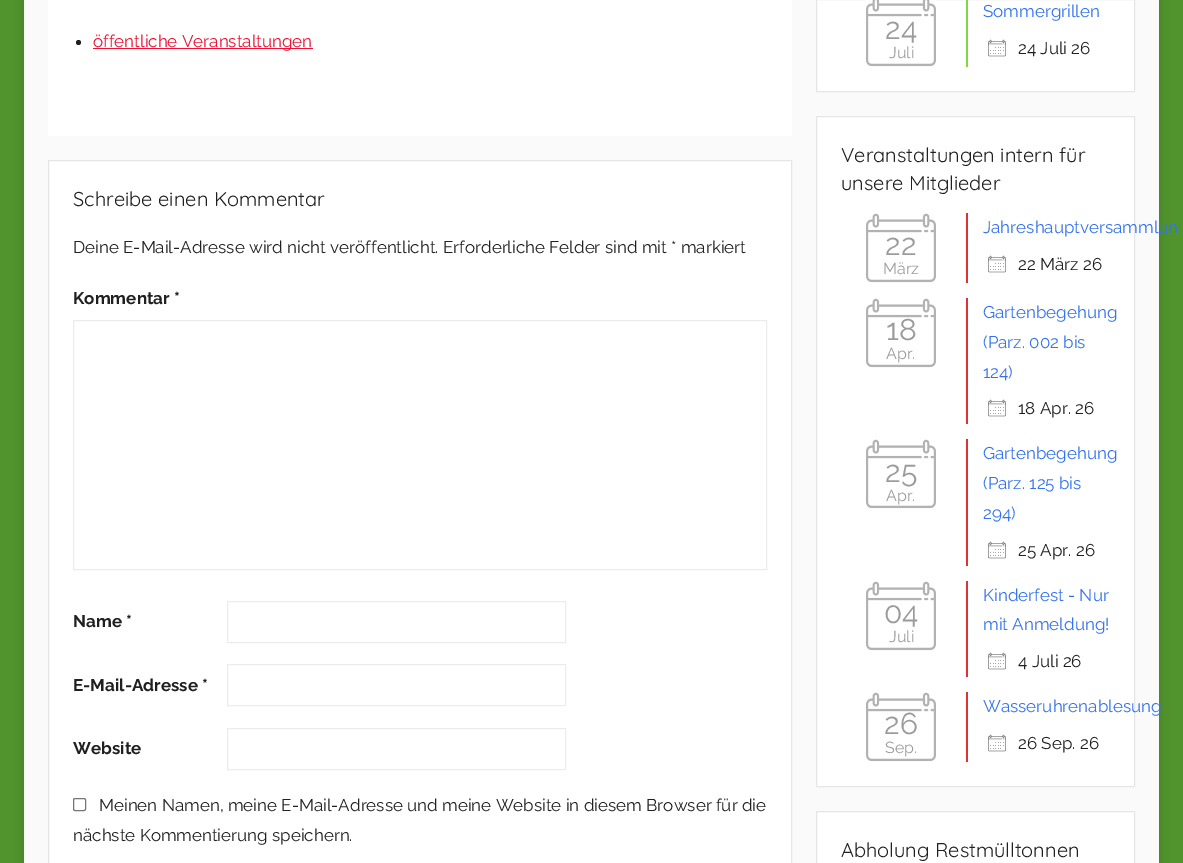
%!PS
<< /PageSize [1183 863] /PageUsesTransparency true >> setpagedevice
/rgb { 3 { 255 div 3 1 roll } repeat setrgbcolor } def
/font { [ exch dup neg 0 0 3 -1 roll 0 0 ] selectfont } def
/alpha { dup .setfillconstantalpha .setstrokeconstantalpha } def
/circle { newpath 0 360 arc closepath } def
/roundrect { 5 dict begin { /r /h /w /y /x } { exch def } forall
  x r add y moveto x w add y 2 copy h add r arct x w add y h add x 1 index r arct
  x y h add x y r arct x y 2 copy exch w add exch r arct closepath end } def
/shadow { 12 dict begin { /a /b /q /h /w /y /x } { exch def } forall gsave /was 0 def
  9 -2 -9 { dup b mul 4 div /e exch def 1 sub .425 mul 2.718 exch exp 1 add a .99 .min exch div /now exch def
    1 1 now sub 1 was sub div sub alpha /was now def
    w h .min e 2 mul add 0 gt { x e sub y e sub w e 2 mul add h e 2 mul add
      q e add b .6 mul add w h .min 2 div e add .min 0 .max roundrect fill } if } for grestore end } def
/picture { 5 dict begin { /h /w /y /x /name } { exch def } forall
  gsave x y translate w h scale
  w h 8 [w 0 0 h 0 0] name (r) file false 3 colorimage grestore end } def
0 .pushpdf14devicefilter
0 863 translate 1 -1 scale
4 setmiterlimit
81 147 45 rgb
0 0 1183 863 rectfill
0 0 0 rgb
24 -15 1135 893 0 5 0.15 shadow
250 250 250 rgb
24 0 1135 863 rectfill
255 255 255 rgb
48 0 744 136 rectfill
32 32 32 rgb
78.5 42.5 2.5 circle fill
238 17 51 rgb
93 48 220 1 rectfill
255 255 255 rgb
48.5 160.5 moveto 791.5 160.5 lineto 791.5 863.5 lineto 48.5 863.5 lineto closepath gsave fill grestore
230 230 230 rgb
stroke
236 236 236 rgb
73.5 320.5 693 249 rectstroke
227.5 601.5 338 41 rectstroke
227.5 664.5 338 41 rectstroke
227.5 728.5 338 41 rectstroke
118 118 118 rgb
73.5 798.5 12 12 1.5 roundrect stroke
255 255 255 rgb
816.5 -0.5 moveto 1134.5 -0.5 lineto 1134.5 91.5 lineto 816.5 91.5 lineto closepath gsave fill grestore
230 230 230 rgb
stroke
(img/1.rgb) 866 0 70 67 picture
129 215 66 rgb
966 0 2 67 rectfill
(img/2.rgb) 988 39 18 18 picture
255 255 255 rgb
816.5 116.5 moveto 1134.5 116.5 lineto 1134.5 786.5 lineto 816.5 786.5 lineto closepath gsave fill grestore
230 230 230 rgb
stroke
(img/3.rgb) 866 213 70 70 picture
221 51 51 rgb
966 213 2 70 rectfill
(img/2.rgb) 988 255 18 18 picture
(img/3.rgb) 866 298 70 70 picture
966 298 2 126 rectfill
(img/2.rgb) 988 399 18 18 picture
(img/3.rgb) 866 439 70 70 picture
966 439 2 127 rectfill
(img/2.rgb) 988 541 18 18 picture
(img/3.rgb) 866 581 70 70 picture
966 581 2 96 rectfill
(img/2.rgb) 988 652 18 18 picture
(img/3.rgb) 866 692 70 70 picture
966 692 2 70 rectfill
(img/2.rgb) 988 734 18 18 picture
255 255 255 rgb
816.5 811.5 moveto 1134.5 811.5 lineto 1134.5 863.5 lineto 816.5 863.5 lineto closepath gsave fill grestore
230 230 230 rgb
stroke
/Raleway-Regular 17 font
238 17 51 rgb
93 47 moveto (öffentliche Veranstaltungen) show
/Quicksand-Regular 20 font
32 32 32 rgb
73 206 moveto (Schreibe einen Kommentar) show
/Raleway-Regular 17 font
73 253 moveto (Deine E-Mail-Adresse wird nicht veröffentlicht. Erforderliche Felder sind mit * markiert) show
/Raleway-Bold 17 font
[
  [(Kommentar *) 73 304]
  [(Name *) 73 627]
  [(E-Mail-Adresse *) 73 691]
  [(Website) 73 754]
] { aload pop moveto show } forall
/Raleway-Regular 17 font
99 811 moveto (Meinen Namen, meine E-Mail-Adresse und meine Website in diesem Browser für die) show
73 841 moveto (nächste Kommentierung speichern.) show
/Raleway-Regular 30 font
155 155 155 rgb
885 39 moveto (24) show
/Raleway-Regular 16 font
889 58 moveto (Juli) show
/Raleway-Regular 17 font
51 114 240 rgb
983 17 moveto (Sommergrillen) show
32 32 32 rgb
1018 54 moveto (24 Juli 26) show
/Quicksand-Regular 20 font
841 162 moveto (Veranstaltungen intern für) show
841 190 moveto (unsere Mitglieder) show
/Raleway-Regular 30 font
155 155 155 rgb
885 255 moveto (22) show
/Raleway-Regular 16 font
883 274 moveto (März) show
/Raleway-Regular 17 font
51 114 240 rgb
983 233 moveto (Jahreshauptversammlun) show
32 32 32 rgb
1018 270 moveto (22 März 26) show
/Raleway-Regular 30 font
155 155 155 rgb
886 340 moveto (18) show
/Raleway-Regular 16 font
886 359 moveto (Apr.) show
/Raleway-Regular 17 font
51 114 240 rgb
[
  [(Gartenbegehung) 983 318]
  [(\(Parz. 002 bis) 983 348]
  [(124\)) 983 378]
] { aload pop moveto show } forall
32 32 32 rgb
1018 414 moveto (18 Apr. 26) show
/Raleway-Regular 30 font
155 155 155 rgb
885 482 moveto (25) show
/Raleway-Regular 16 font
886 501 moveto (Apr.) show
/Raleway-Regular 17 font
51 114 240 rgb
[
  [(Gartenbegehung) 983 459]
  [(\(Parz. 125 bis) 983 489]
  [(294\)) 983 519]
] { aload pop moveto show } forall
32 32 32 rgb
1018 556 moveto (25 Apr. 26) show
/Raleway-Regular 30 font
155 155 155 rgb
884 623 moveto (04) show
/Raleway-Regular 16 font
889 642 moveto (Juli) show
/Raleway-Regular 17 font
51 114 240 rgb
983 601 moveto (Kinderfest - Nur) show
983 630 moveto (mit Anmeldung!) show
32 32 32 rgb
1018 667 moveto (4 Juli 26) show
/Raleway-Regular 30 font
155 155 155 rgb
884 734 moveto (26) show
/Raleway-Regular 16 font
885 753 moveto (Sep.) show
/Raleway-Regular 17 font
51 114 240 rgb
983 712 moveto (Wasseruhrenablesung) show
32 32 32 rgb
1018 749 moveto (26 Sep. 26) show
/Quicksand-Regular 20 font
841 857 moveto (Abholung Restmülltonnen) show
.poppdf14devicefilter showpage
